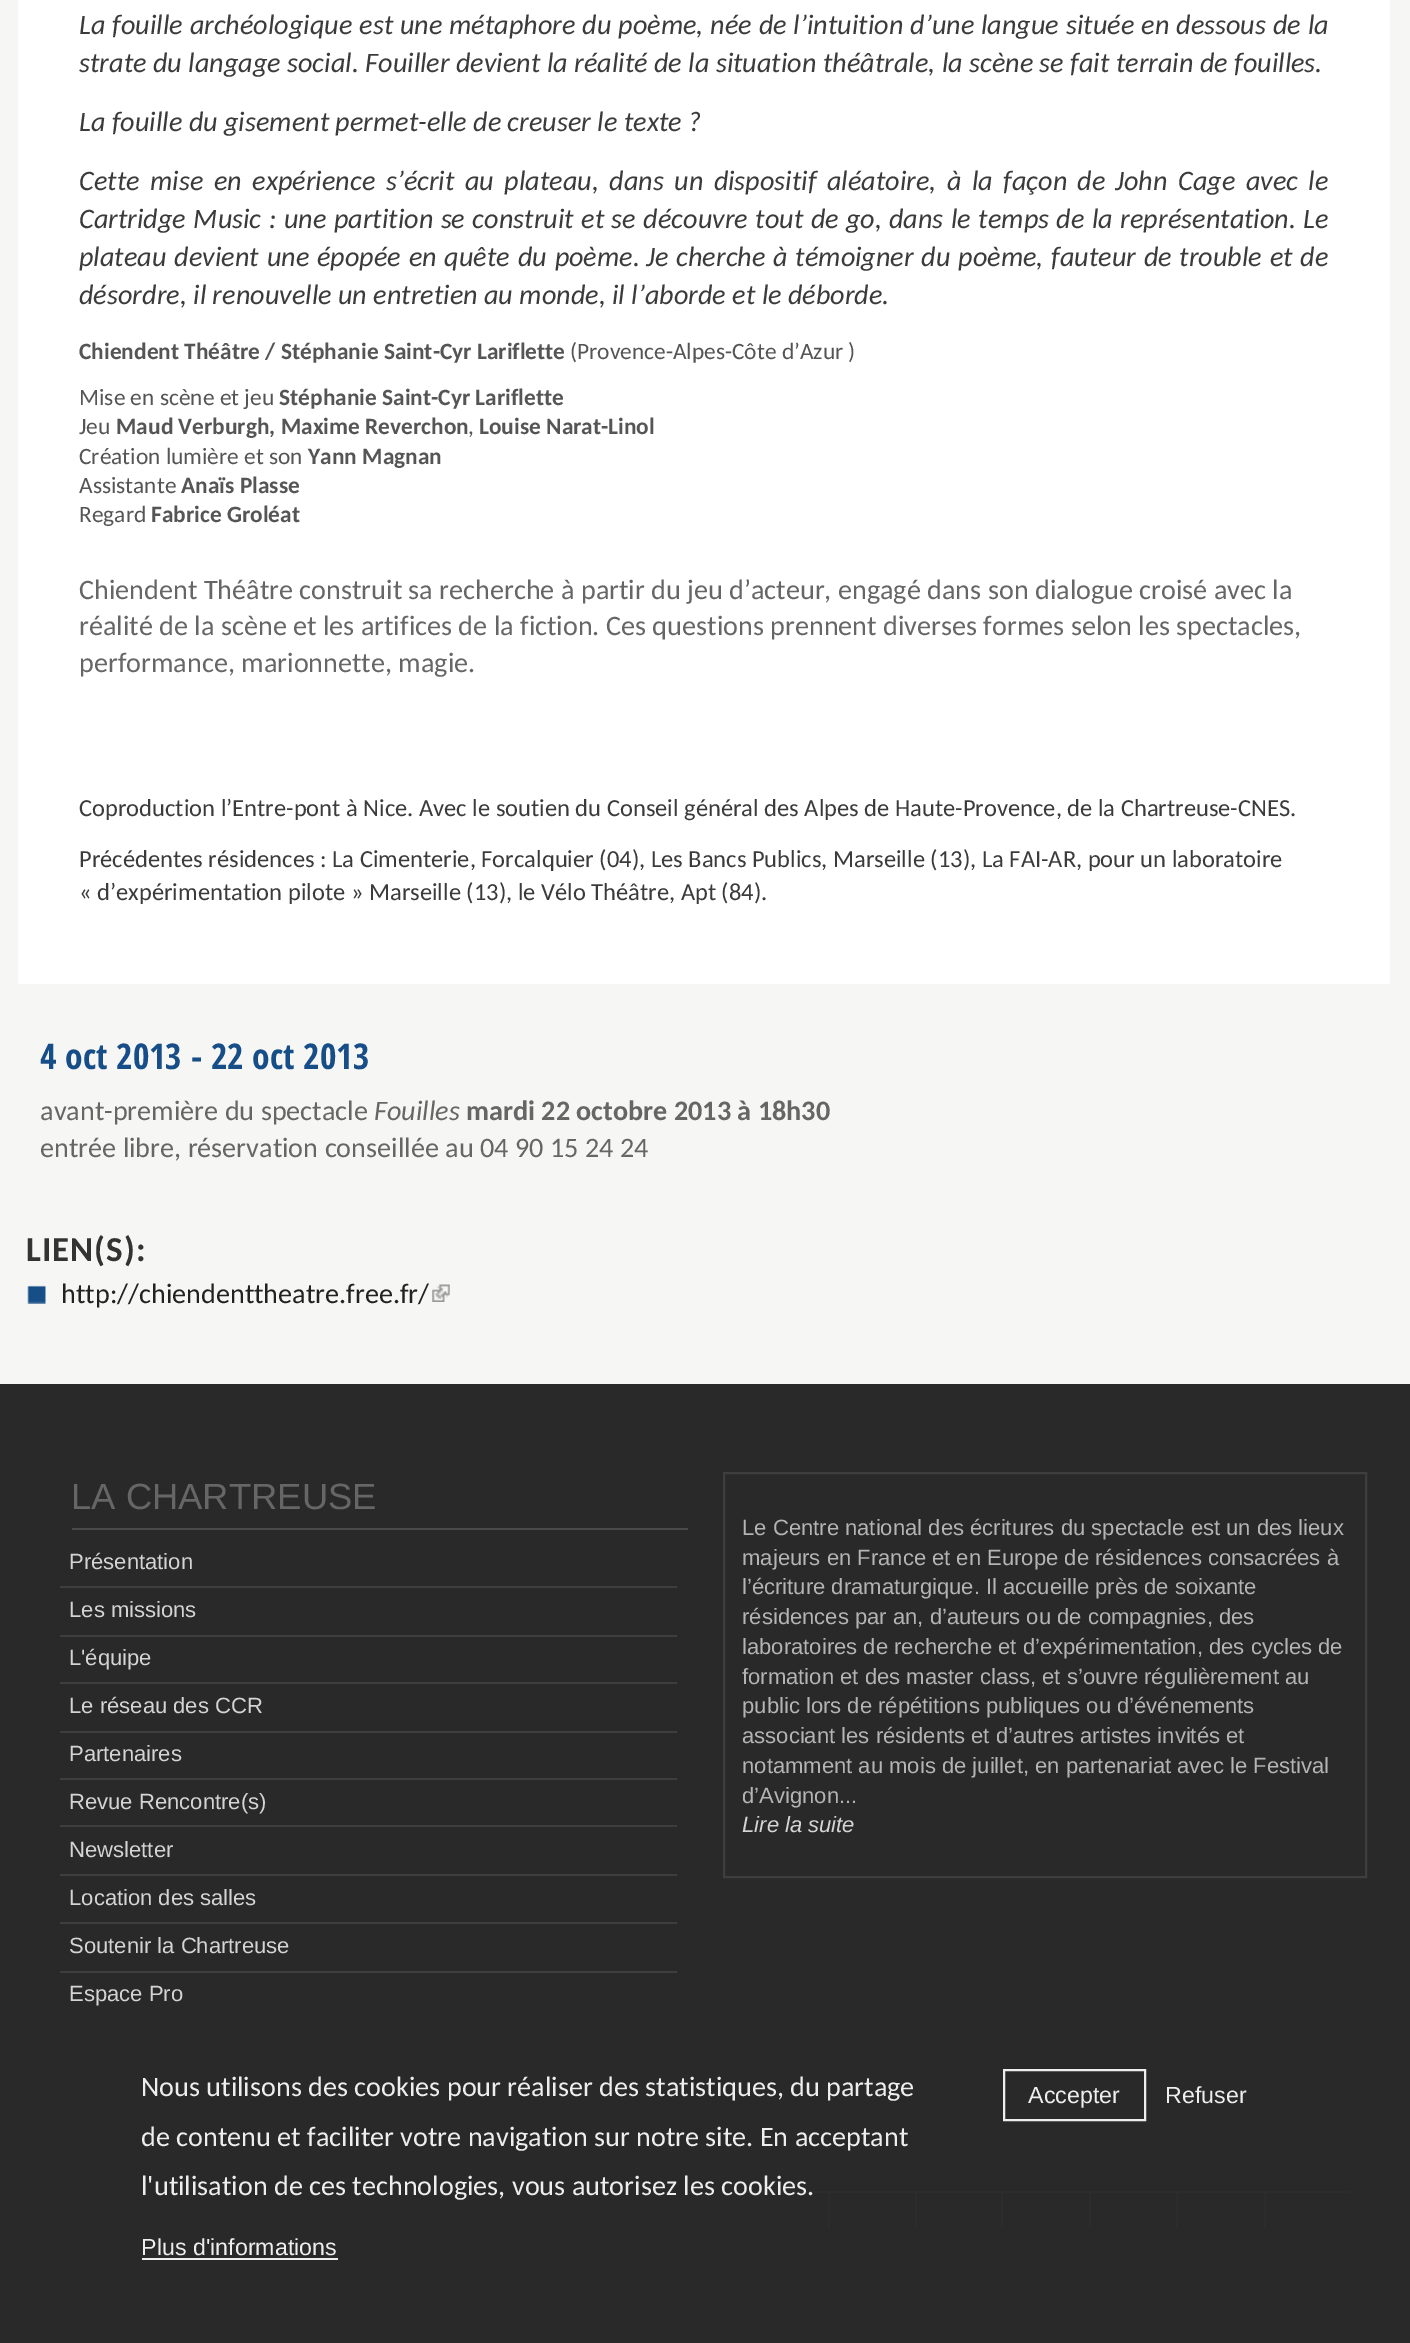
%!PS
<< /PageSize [1410 2343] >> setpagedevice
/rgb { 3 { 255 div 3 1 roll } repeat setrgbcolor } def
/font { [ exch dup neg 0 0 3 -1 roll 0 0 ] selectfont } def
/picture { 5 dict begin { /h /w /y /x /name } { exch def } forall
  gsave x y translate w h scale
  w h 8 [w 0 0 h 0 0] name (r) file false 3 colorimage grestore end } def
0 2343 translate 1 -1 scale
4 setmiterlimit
246 246 244 rgb
0 0 1410 2343 rectfill
255 255 255 rgb
18 0 1372 984 rectfill
(img/1.rgb) 27 1285 19 19 picture
(img/2.rgb) 432 1284 18 18 picture
[
  [0 1384 1410 959 41 41 41]
  [72 1528 616 2 73 73 73]
  [60 1586 617 2 62 62 62]
  [60 1635 617 2 62 62 62]
  [60 1682 617 2 62 62 62]
  [60 1731 617 2 62 62 62]
  [60 1778 617 2 62 62 62]
  [60 1825 617 2 62 62 62]
  [60 1874 617 2 62 62 62]
  [60 1922 617 2 62 62 62]
  [60 1971 617 2 62 62 62]
] { aload pop rgb rectfill } forall
2 setlinewidth
724 1473 642 404 rectstroke
[
  [742 2191 86 2 44 44 44]
  [828 2191 2 37 44 44 44]
  [828 2191 87 2 44 44 44]
  [915 2191 2 37 44 44 44]
  [915 2191 175 2 44 44 44]
  [1001 2191 2 37 44 44 44]
  [1089 2191 2 35 44 44 44]
  [1090 2191 174 2 44 44 44]
  [1176 2191 2 37 44 44 44]
  [1264 2191 2 37 44 44 44]
  [1264 2191 87 2 44 44 44]
  [1089 2226 2 2 44 44 44]
  [142 2258 196 2 238 238 238]
] { aload pop rgb rectfill } forall
1004 2070 141 50 rectstroke
/Carlito-Italic 28.2 font
59 59 59 rgb
79 34 moveto 0.5 0 32 (La fouille archéologique est une métaphore du poème, née de l’intuition d’une langue) widthshow
1066 34 moveto 0.5 0 32 (située en dessous de la) widthshow
79 72 moveto (strate du langage social. Fouiller devient la réalité de la situation théâtrale, la scène se fait terrain de fouilles.) show
79 131 moveto (La fouille du gisement permet-elle de creuser le texte ?) show
79 190 moveto 4.1 0 32 (Cette mise en expérience s’écrit au plateau, dans un dispositif aléatoire, à la façon de) widthshow
1115 190 moveto 4.1 0 32 (John Cage avec le) widthshow
79 228 moveto 1.1 0 32 (Cartridge Music : une partition se construit et se découvre tout de go,) widthshow
889 228 moveto 1.1 0 32 (dans le temps de la représentation. Le) widthshow
79 266 moveto 1.5 0 32 (plateau devient une épopée en quête du poème.) widthshow
646 266 moveto 1.4 0 32 (Je cherche à témoigner du poème, fauteur de trouble et de) widthshow
79 304 moveto (désordre, il renouvelle un entretien au monde, il l’aborde et le déborde.) show
/Carlito-Bold 23.4 font
85 85 85 rgb
79 359 moveto (Chiendent Théâtre / Stéphanie Saint-Cyr Lariflette) show
/Carlito-Regular 23.4 font
570 359 moveto (\(Provence-Alpes-Côte d’Azur \)) show
79 405 moveto (Mise en scène et jeu) show
/Carlito-Bold 23.4 font
279 405 moveto (Stéphanie Saint-Cyr Lariflette) show
/Carlito-Regular 23.4 font
79 434 moveto (Jeu) show
/Carlito-Bold 23.4 font
116 434 moveto (Maud Verburgh, Maxime Reverchon) show
/Carlito-Regular 23.4 font
468 434 moveto (,) show
/Carlito-Bold 23.4 font
479 434 moveto (Louise Narat-Linol) show
/Carlito-Regular 23.4 font
79 464 moveto (Création lumière et son) show
/Carlito-Bold 23.4 font
308 464 moveto (Yann Magnan) show
/Carlito-Regular 23.4 font
79 493 moveto (Assistante) show
/Carlito-Bold 23.4 font
181 493 moveto (Anaïs Plasse) show
/Carlito-Regular 23.4 font
79 522 moveto (Regard) show
/Carlito-Bold 23.4 font
151 522 moveto (Fabrice Groléat) show
/Carlito-Regular 28.2 font
102 102 102 rgb
[
  [(Chiendent Théâtre construit sa recherche à partir du jeu d’acteur, engagé dans son dialogue croisé avec la) 79 599]
  [(réalité de la scène et les artifices de la fiction. Ces questions prennent diverses formes selon les spectacles,) 79 635]
  [(performance, marionnette, magie.) 79 672]
] { aload pop moveto show } forall
/Carlito-Regular 24.5 font
59 59 59 rgb
[
  [(Coproduction l’Entre-pont à Nice. Avec le soutien du Conseil général des Alpes de Haute-Provence, de la Chartreuse-CNES.) 79 816]
  [(Précédentes résidences : La Cimenterie, Forcalquier \(04\), Les Bancs Publics, Marseille \(13\), La FAI-AR, pour un laboratoire) 79 867]
  [(« d’expérimentation pilote » Marseille \(13\), le Vélo Théâtre, Apt \(84\).) 79 900]
] { aload pop moveto show } forall
/OpenSansCondensed-Bold 35.5 font
23 78 136 rgb
40 1069 moveto (4 oct 2013 - 22 oct 2013) show
/Carlito-Regular 28.2 font
102 102 102 rgb
40 1120 moveto (avant-première du spectacle) show
/Carlito-Italic 28.2 font
374 1120 moveto (Fouilles) show
/Carlito-Bold 28.2 font
466 1120 moveto (mardi 22 octobre 2013 à 18h30) show
/Carlito-Regular 28.2 font
40 1157 moveto (entrée libre, réservation conseillée au 04 90 15 24 24) show
/Carlito-Bold 35 font
51 51 51 rgb
26 1261 moveto 1 0 (LIEN\(S\):) ashow
/Carlito-Regular 28.2 font
34 34 34 rgb
61 1303 moveto (http://chiendenttheatre.free.fr/) show
/LiberationSans-Regular 36.4 font
102 102 102 rgb
71 1509 moveto (LA CHARTREUSE) show
/LiberationSans-Regular 22.05 font
212 212 212 rgb
[
  [(Présentation) 69 1569]
  [(Les missions) 69 1617]
  [(L'équipe) 69 1665]
  [(Le réseau des CCR) 69 1713]
  [(Partenaires) 69 1761]
  [(Revue Rencontre\(s\)) 69 1809]
  [(Newsletter) 69 1857]
  [(Location des salles) 69 1905]
  [(Soutenir la Chartreuse) 69 1953]
  [(Espace Pro) 69 2001]
] { aload pop moveto show } forall
180 180 180 rgb
[
  [(Le Centre national des écritures du spectacle est un des lieux) 742 1535]
  [(majeurs en France et en Europe de résidences consacrées à) 742 1565]
  [(l’écriture dramaturgique. Il accueille près de soixante) 742 1594]
  [(résidences par an, d’auteurs ou de compagnies, des) 742 1624]
  [(laboratoires de recherche et d’expérimentation, des cycles de) 742 1654]
  [(formation et des master class, et s’ouvre régulièrement au) 742 1684]
  [(public lors de répétitions publiques ou d’événements) 742 1713]
  [(associant les résidents et d’autres artistes invités et) 742 1743]
  [(notamment au mois de juillet, en partenariat avec le Festival) 742 1773]
  [(d’Avignon...) 742 1803]
] { aload pop moveto show } forall
/LiberationSans-Italic 22.05 font
212 212 212 rgb
742 1832 moveto (Lire la suite) show
/Carlito-Regular 28.2 font
238 238 238 rgb
[
  [(Nous utilisons des cookies pour réaliser des statistiques, du partage) 141 2096]
  [(de contenu et faciliter votre navigation sur notre site. En acceptant) 141 2146]
  [(l'utilisation de ces technologies, vous autorisez les cookies.) 141 2195]
] { aload pop moveto show } forall
/LiberationSans-Regular 23.25 font
[
  [(Plus d'informations) 141 2255]
  [(Accepter) 1028 2103]
  [(Refuser) 1165 2103]
] { aload pop moveto show } forall
showpage
